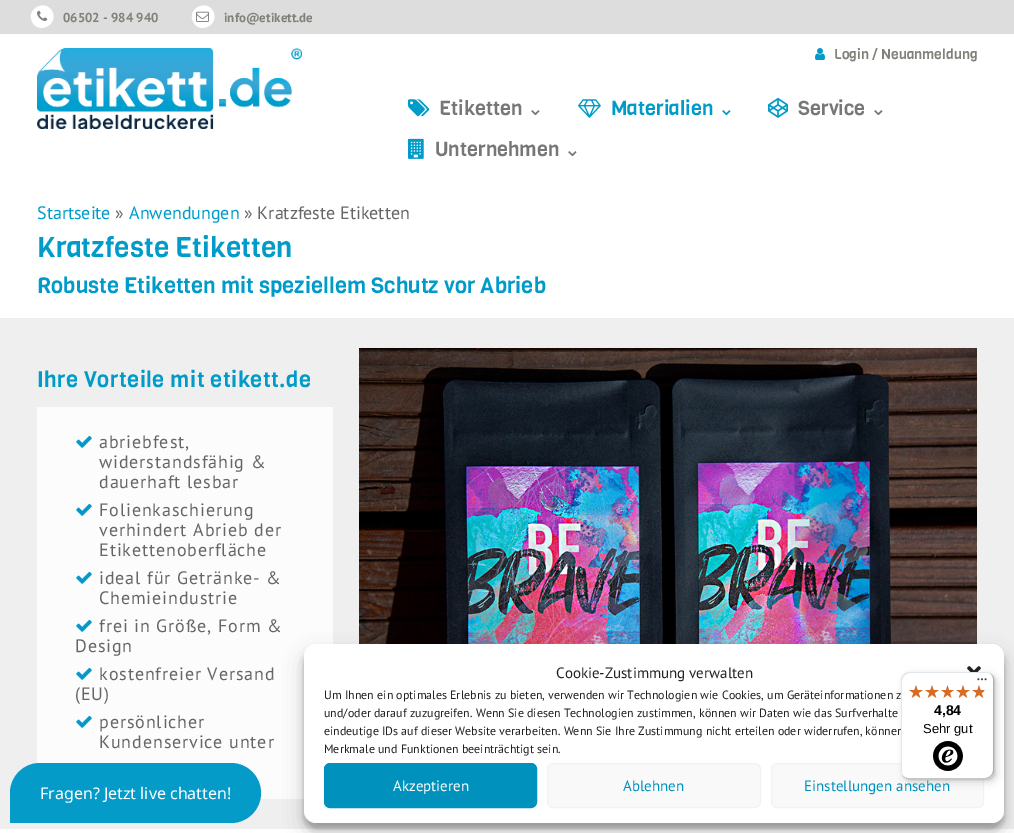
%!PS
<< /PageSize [1014 833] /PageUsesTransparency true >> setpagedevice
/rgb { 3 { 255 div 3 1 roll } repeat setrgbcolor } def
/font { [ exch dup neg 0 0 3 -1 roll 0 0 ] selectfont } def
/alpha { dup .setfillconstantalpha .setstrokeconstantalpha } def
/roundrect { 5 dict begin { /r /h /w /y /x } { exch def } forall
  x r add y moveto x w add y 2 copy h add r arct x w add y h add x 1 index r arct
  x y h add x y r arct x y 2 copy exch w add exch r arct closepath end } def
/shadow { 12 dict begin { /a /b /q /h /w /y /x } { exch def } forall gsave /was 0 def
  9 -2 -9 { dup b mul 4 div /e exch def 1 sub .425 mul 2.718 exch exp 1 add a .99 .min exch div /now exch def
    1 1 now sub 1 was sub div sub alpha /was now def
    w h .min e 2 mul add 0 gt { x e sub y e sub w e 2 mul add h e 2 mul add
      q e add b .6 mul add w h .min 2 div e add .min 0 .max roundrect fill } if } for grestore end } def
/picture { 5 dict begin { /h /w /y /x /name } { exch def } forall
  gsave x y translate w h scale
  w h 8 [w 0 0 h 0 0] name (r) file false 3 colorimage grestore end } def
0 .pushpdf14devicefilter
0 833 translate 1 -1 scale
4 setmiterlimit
255 255 255 rgb
0 0 1014 833 rectfill
221 221 221 rgb
0 0 1014 34 rectfill
255 255 255 rgb
52 11 moveto 59 23.5 40 35 32.5 22.5 curveto 25 9.5 44.5 -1.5 52 11 curveto closepath fill
(img/1.rgb) 37 10 11 11 picture
213 11 moveto 220 23.5 201 35 193.5 22.5 curveto 186 9.5 205.5 -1.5 213 11 curveto closepath fill
(img/2.rgb) 196 11 13 11 picture
(img/3.rgb) 37 48 265 81 picture
(img/4.rgb) 815 48 10 12 picture
(img/5.rgb) 408 99 22 18 picture
(img/6.rgb) 578 99 23 19 picture
(img/7.rgb) 768 97 20 21 picture
(img/8.rgb) 408 138 16 21 picture
239 239 239 rgb
0 318 1014 511 rectfill
252 252 252 rgb
37 407 296 392 rectfill
(img/9.rgb) 76 435 16 13 picture
(img/9.rgb) 76 503 16 13 picture
(img/9.rgb) 76 571 16 13 picture
(img/9.rgb) 76 619 16 13 picture
(img/9.rgb) 76 667 16 13 picture
(img/9.rgb) 76 715 16 13 picture
(img/10.rgb) 359 348 618 296 picture
0 0 0 rgb
304 650 700 179 12 3 0.23 shadow
304 654 700 179 12 10 0.19 shadow
255 255 255 rgb
304 644 700 179 12 roundrect fill
(img/11.rgb) 967 666 14 6 picture
0 146 188 rgb
324.5 763.5 212 44 5.5 roundrect gsave fill grestore
stroke
249 249 249 rgb
547.5 763.5 213 44 5.5 roundrect gsave fill grestore
242 242 242 rgb
stroke
249 249 249 rgb
771.5 763.5 212 44 5.5 roundrect gsave fill grestore
242 242 242 rgb
stroke
0 0 0 rgb
904 675 93 107 8 4 0.15 shadow
902 673 93 107 8 1 0.15 shadow
4 155 201 rgb
40 763 moveto 231 763 lineto 247.5 763 261 776.5 261 793 curveto 261 809.5 247.5 823 231 823 curveto 10 823 lineto 10 793 lineto 10 776.5 23.5 763 40 763 curveto closepath fill
/PTSans-Bold 13 font
128 129 122 rgb
63 22 moveto (06502 - 984 940) show
224 22 moveto (info@etikett.de) show
/Viga-Regular 14 font
834 59 moveto (Login / Neuanmeldung) show
/Viga-Regular 20 font
119 119 119 rgb
439 115 moveto (Etiketten) show
/DejaVuSans-Regular 20 font
527 115 moveto (⌄) show
/Viga-Regular 20 font
0 155 201 rgb
611 115 moveto (Materialien) show
/DejaVuSans-Regular 20 font
718 115 moveto (⌄) show
/Viga-Regular 20 font
119 119 119 rgb
798 115 moveto (Service) show
/DejaVuSans-Regular 20 font
870 115 moveto (⌄) show
/Viga-Regular 20 font
435 156 moveto (Unternehmen) show
/DejaVuSans-Regular 20 font
564 156 moveto (⌄) show
/PTSans-Regular 18 font
0 155 201 rgb
37 219 moveto (Startseite) show
102 102 102 rgb
115 219 moveto (») show
0 155 201 rgb
129 219 moveto (Anwendungen) show
102 102 102 rgb
244 219 moveto (» Kratzfeste Etiketten) show
/Viga-Regular 28 font
0 155 201 rgb
37 257 moveto (Kratzfeste Etiketten) show
/Viga-Regular 22 font
37 293 moveto (Robuste Etiketten mit speziellem Schutz vor Abrieb) show
37 387 moveto 0.45 0 (Ihre Vorteile mit etikett.de) ashow
/PTSans-Regular 18 font
102 102 102 rgb
99 448 moveto 0.9 0 (abriebfest,) ashow
99 468 moveto 0.9 0 (widerstandsfähig &) ashow
99 488 moveto 0.9 0 (dauerhaft lesbar) ashow
99 516 moveto 0.9 0 (Folienkaschierung) ashow
99 536 moveto 0.9 0 (verhindert Abrieb der) ashow
99 556 moveto 0.9 0 (Etikettenoberfläche) ashow
99 584 moveto 0.9 0 (ideal für Getränke- &) ashow
99 604 moveto 0.9 0 (Chemieindustrie) ashow
99 632 moveto 0.9 0 (frei in Größe, Form &) ashow
75 652 moveto 0.9 0 (Design) ashow
99 680 moveto 0.9 0 (kostenfreier Versand) ashow
75 700 moveto 0.9 0 (\(EU\)) ashow
99 728 moveto 0.9 0 (persönlicher) ashow
99 748 moveto 0.9 0 (Kundenservice unter) ashow
/PTSans-Regular 15 font
34 34 34 rgb
556 678 moveto (Cookie-Zustimmung verwalten) show
/PTSans-Regular 12 font
[
  [(Um Ihnen ein optimales Erlebnis zu bieten, verwenden wir Technologien wie Cookies, um Geräteinformationen z) 324 699]
  [(und/oder darauf zuzugreifen. Wenn Sie diesen Technologien zustimmen, können wir Daten wie das Surfverhalte) 324 717]
  [(eindeutige IDs auf dieser Website verarbeiten. Wenn Sie Ihre Zustimmung nicht erteilen oder widerrufen, können) 324 735]
  [(Merkmale und Funktionen beeinträchtigt sein.) 324 753]
] { aload pop moveto show } forall
/PTSans-Regular 15 font
255 255 255 rgb
393 791 moveto (Akzeptieren) show
0 146 188 rgb
623 791 moveto (Ablehnen) show
804 791 moveto (Einstellungen ansehen) show
255 255 255 rgb
901 672 93 107 8 roundrect fill
229 229 229 rgb
910 673 moveto 987 673 lineto 989 673 991 674 993 676 curveto 991 674 989 672 986 672 curveto 909 672 lineto 905 672 901 676 901 680 curveto 901 771 lineto 901 774 903 776 905 778 curveto 903 776 902 774 902 772 curveto 902 681 lineto 902 677 906 673 910 673 curveto closepath fill
0.2 alpha
0 0 0 rgb
902 775 moveto 904 777 906 779 909 779 curveto 986 779 lineto 990 779 994 775 994 771 curveto 994 680 lineto 994 677 992 675 990 673 curveto 992 675 993 677 993 679 curveto 993 770 lineto 993 774 989 778 985 778 curveto 908 778 lineto 906 778 904 777 902 775 curveto closepath fill
50 50 50 rgb
903 776 moveto 904 778 907 779 909 779 curveto 986 779 lineto 990 779 994 775 994 771 curveto 994 680 lineto 994 678 993 675 991 674 curveto 992 675 993 677 993 679 curveto 993 770 lineto 993 775 990 778 985 778 curveto 908 778 lineto 906 778 904 777 903 776 curveto closepath fill
1 alpha
(img/12.rgb) 977 678 10 3 picture
0.3 alpha
255 255 255 rgb
903 776 moveto 904 778 907 779 909 779 curveto 986 779 lineto 990 779 994 775 994 771 curveto 994 770 lineto 994 775 990 778 986 778 curveto 908 778 lineto 906 778 904 777 903 776 curveto closepath fill
1 alpha
(img/13.rgb) 909 685 14 13 picture
(img/13.rgb) 925 685 14 13 picture
(img/14.rgb) 941 685 13 13 picture
(img/13.rgb) 956 685 14 13 picture
(img/13.rgb) 972 685 14 13 picture
(img/15.rgb) 909 685 14 13 picture
(img/15.rgb) 925 685 14 13 picture
(img/16.rgb) 941 685 13 13 picture
(img/15.rgb) 956 685 14 13 picture
(img/17.rgb) 972 685 12 13 picture
/LiberationSans-Bold 14 font
0 0 0 rgb
934 715 moveto (4,84) show
/LiberationSans-Regular 13 font
923 733 moveto (Sehr gut) show
(img/18.rgb) 933 741 30 30 picture
/NotoSans-Regular 16 font
255 255 255 rgb
40 799 moveto (Fragen? Jetzt live chatten!) show
.poppdf14devicefilter showpage
